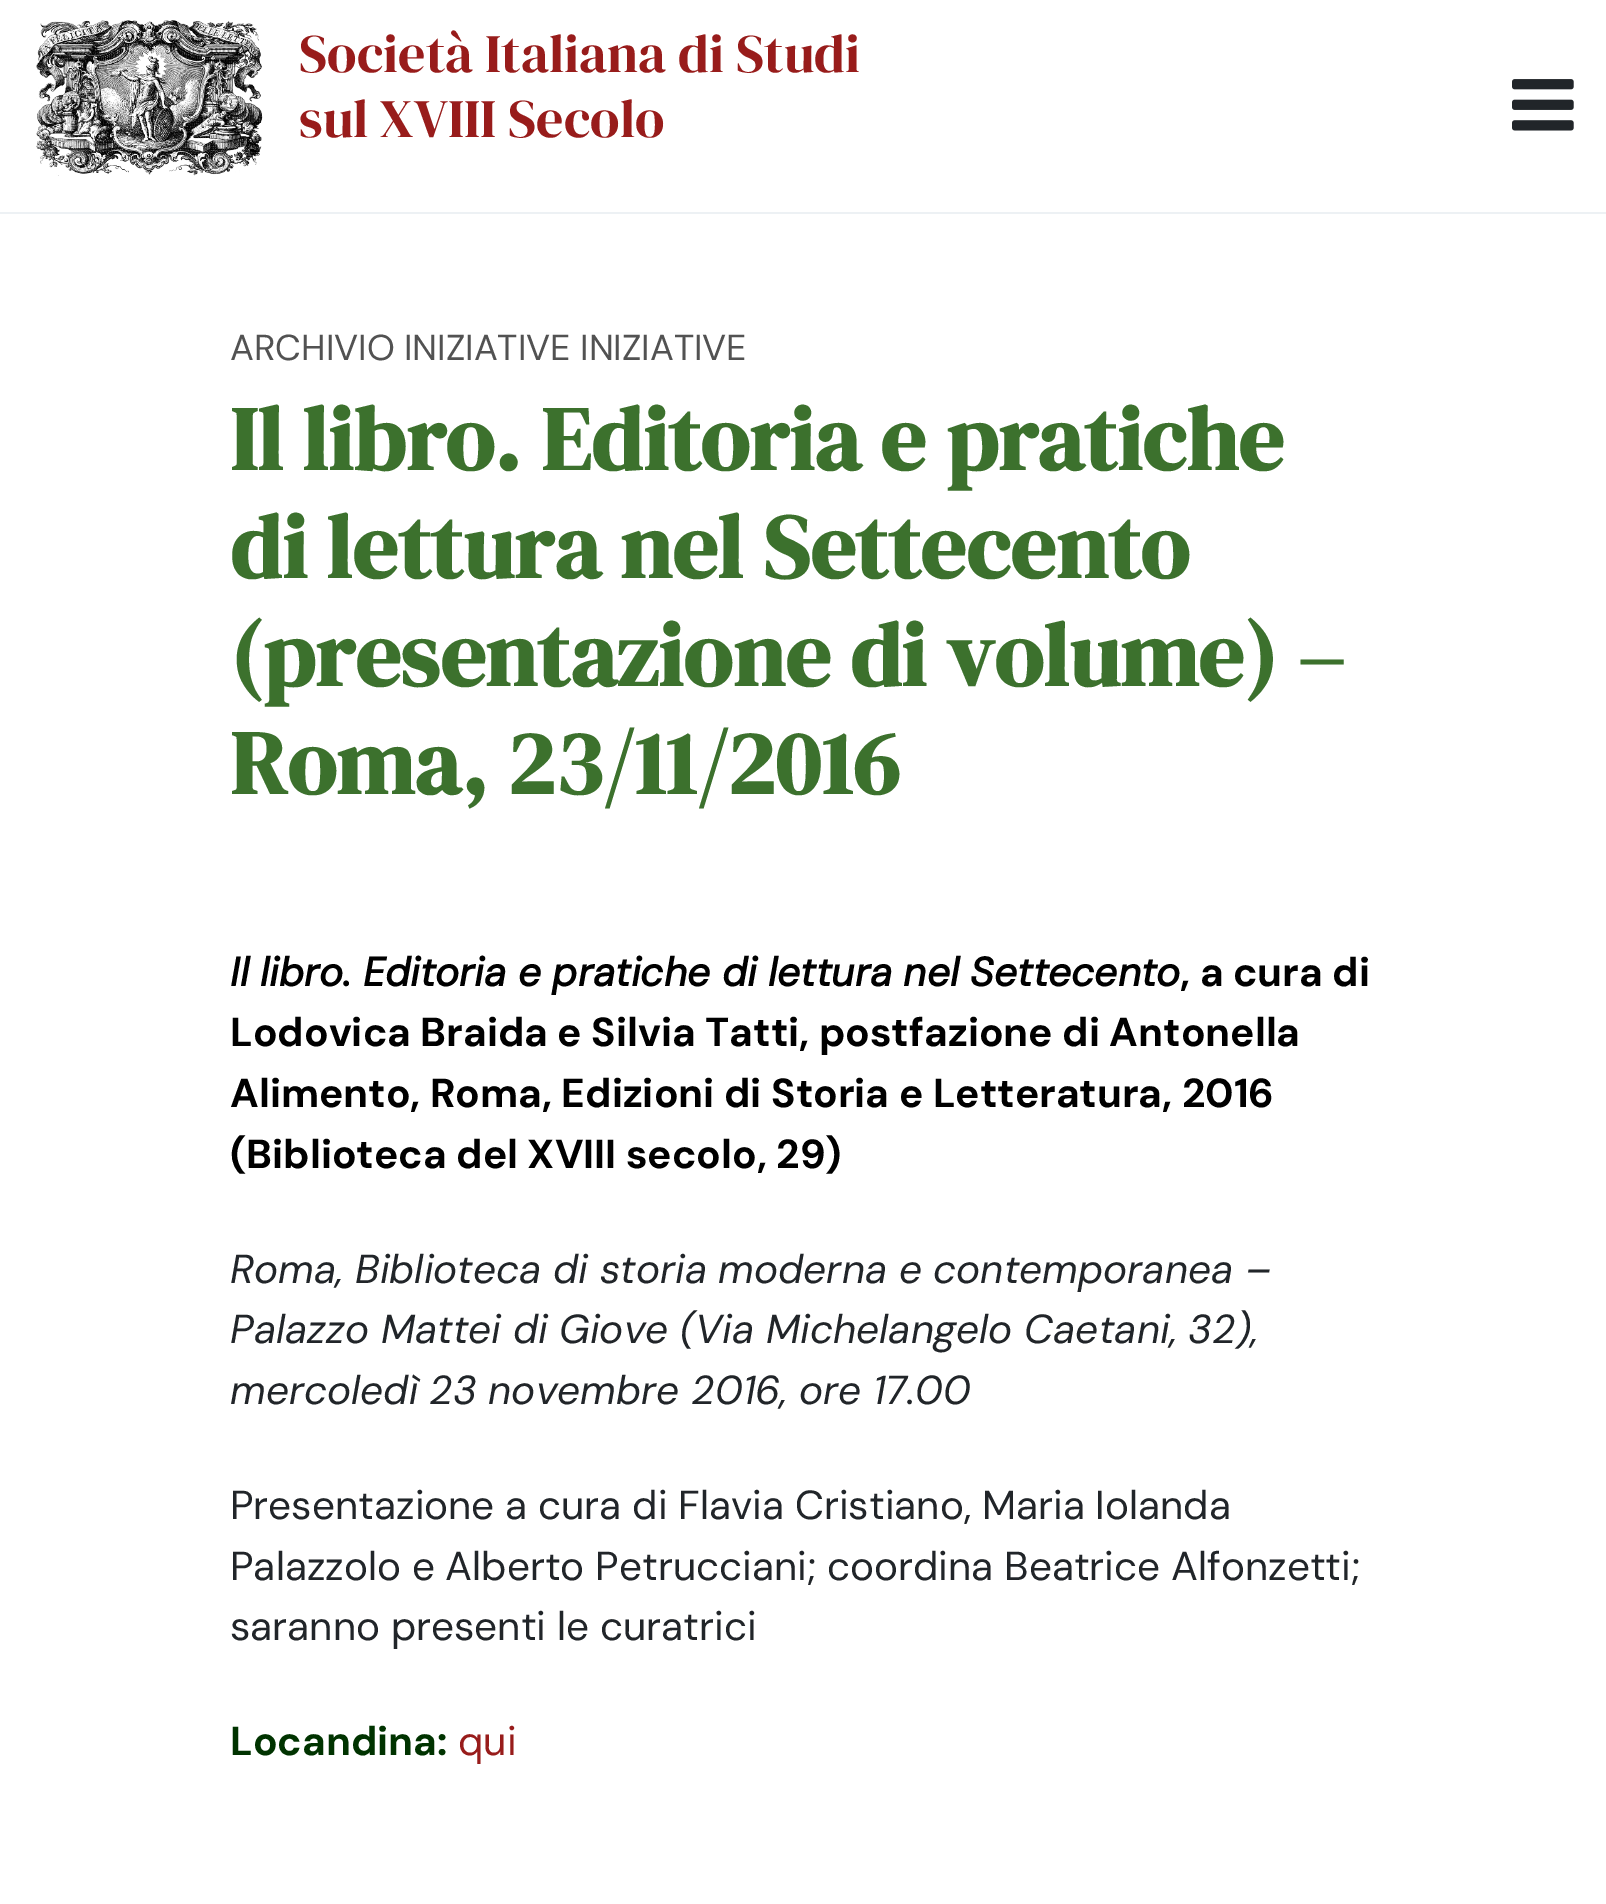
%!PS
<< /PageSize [1606 1904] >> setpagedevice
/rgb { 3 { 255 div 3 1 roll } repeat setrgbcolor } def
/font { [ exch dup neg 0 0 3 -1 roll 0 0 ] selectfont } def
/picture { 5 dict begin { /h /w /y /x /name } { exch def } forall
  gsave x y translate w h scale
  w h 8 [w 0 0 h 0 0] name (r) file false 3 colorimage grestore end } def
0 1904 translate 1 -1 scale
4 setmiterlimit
255 255 255 rgb
0 0 1606 1904 rectfill
237 241 244 rgb
0 212 1606 2 rectfill
(img/1.rgb) 36 20 227 156 picture
(img/2.rgb) 1512 79 62 52 picture
/DMSerifDisplay-Regular 54 font
152 28 27 rgb
299 72 moveto (Società Italiana di Studi) show
299 137 moveto (sul XVIII Secolo) show
/DMSans-Regular 36 font
82 82 82 rgb
230 360 moveto (ARCHIVIO INIZIATIVE INIZIATIVE) show
/DMSerifDisplay-Bold 90 font
60 113 45 rgb
[
  [(Il libro. Editoria e pratiche) 230 470]
  [(di lettura nel Settecento) 230 578]
  [(\(presentazione di volume\) –) 230 686]
  [(Roma, 23/11/2016) 230 794]
] { aload pop moveto show } forall
/DMSans-BoldItalic 40.5 font
0 0 0 rgb
230 986 moveto (Il libro. Editoria e pratiche di lettura nel Settecento) show
/DMSans-Bold 40.5 font
[
  [(, a cura di) 1180 986]
  [(Lodovica Braida e Silvia Tatti, postfazione di Antonella) 230 1046]
  [(Alimento, Roma, Edizioni di Storia e Letteratura, 2016) 230 1107]
  [(\(Biblioteca del XVIII secolo, 29\)) 230 1168]
] { aload pop moveto show } forall
/DMSans-Italic 40.5 font
33 37 41 rgb
[
  [(Roma, Biblioteca di storia moderna e contemporanea –) 230 1283]
  [(Palazzo Mattei di Giove \(Via Michelangelo Caetani, 32\),) 230 1343]
  [(mercoledì 23 novembre 2016, ore 17.00) 230 1404]
] { aload pop moveto show } forall
/DMSans-Regular 40.5 font
[
  [(Presentazione a cura di Flavia Cristiano, Maria Iolanda) 230 1519]
  [(Palazzolo e Alberto Petrucciani; coordina Beatrice Alfonzetti;) 230 1580]
  [(saranno presenti le curatrici) 230 1640]
] { aload pop moveto show } forall
/DMSans-Bold 40.5 font
0 51 0 rgb
230 1755 moveto (Locandina:) show
/DMSans-Regular 40.5 font
152 28 27 rgb
458 1755 moveto (qui) show
showpage
